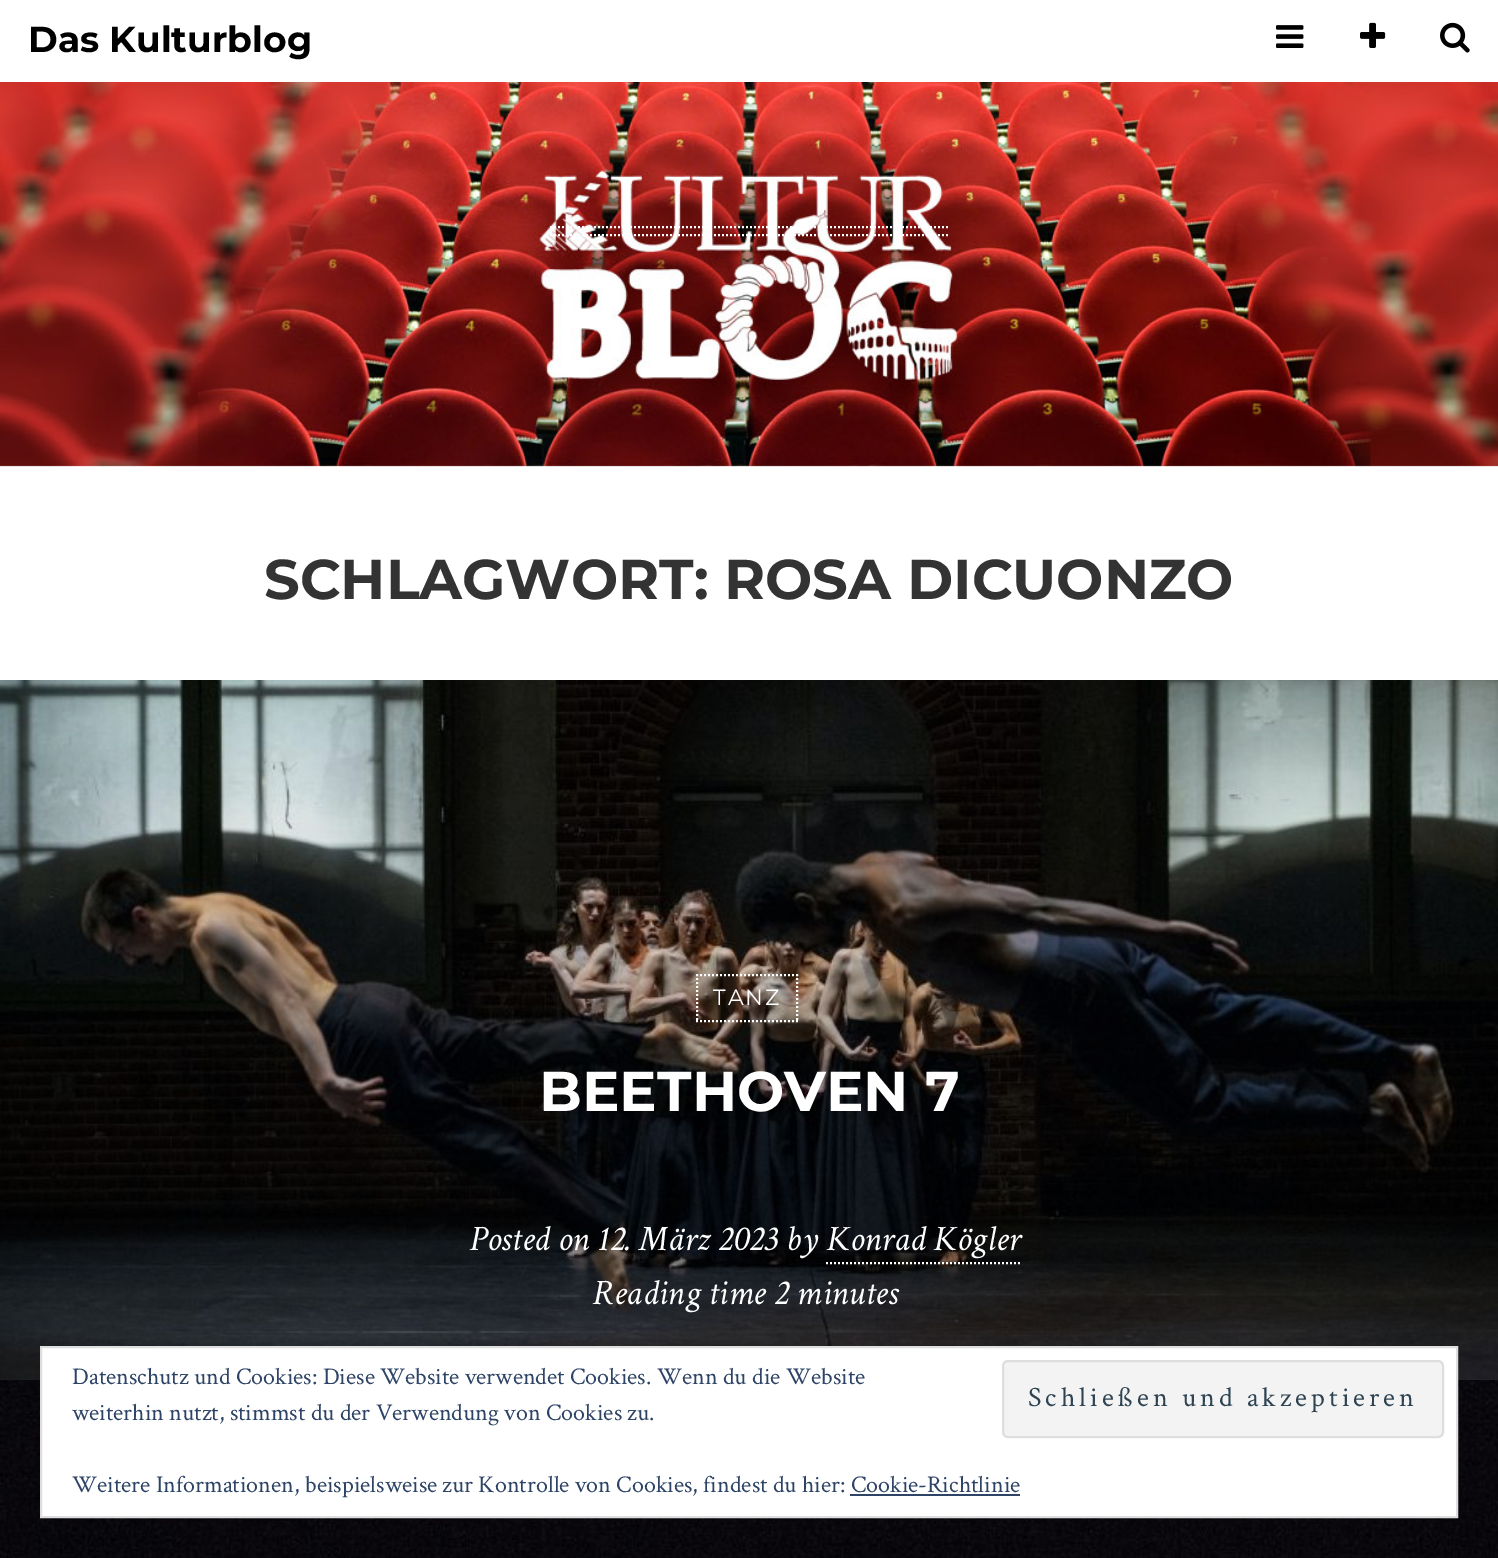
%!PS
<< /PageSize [1498 1558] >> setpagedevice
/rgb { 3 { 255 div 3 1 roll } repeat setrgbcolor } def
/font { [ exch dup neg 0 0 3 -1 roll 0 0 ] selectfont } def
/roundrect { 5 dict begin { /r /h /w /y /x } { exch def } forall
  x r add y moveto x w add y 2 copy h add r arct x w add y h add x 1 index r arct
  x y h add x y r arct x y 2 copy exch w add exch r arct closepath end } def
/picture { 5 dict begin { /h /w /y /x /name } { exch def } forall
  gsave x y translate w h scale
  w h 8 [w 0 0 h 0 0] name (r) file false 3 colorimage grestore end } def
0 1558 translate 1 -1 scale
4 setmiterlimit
255 255 255 rgb
0 0 1498 1558 rectfill
(img/1.rgb) 1276 25 28 23 picture
(img/2.rgb) 1360 22 26 26 picture
(img/3.rgb) 1440 22 30 31 picture
(img/4.rgb) 0 82 1498 385 picture
2 setlinewidth
[2 2] 0 setdash
550 227 moveto 950 227 lineto stroke
550 235 moveto 950 235 lineto stroke
(img/5.rgb) 0 680 1498 700 picture
696 975 moveto 798 975 lineto stroke
797 974 moveto 797 1022 lineto stroke
696 1021 moveto 798 1021 lineto stroke
697 974 moveto 697 1022 lineto stroke
826 1263 moveto 1020 1263 lineto stroke
(img/6.rgb) 0 1380 1498 178 picture
41 1347 moveto 1457 1347 lineto 1457 1517 lineto 41 1517 lineto closepath gsave fill grestore
222 222 222 rgb
[] 0 setdash
stroke
243 243 243 rgb
1003 1361 440 76 5 roundrect gsave fill grestore
222 222 222 rgb
stroke
46 68 103 rgb
850 1494 170 2 rectfill
/Montserrat-Bold 36 font
0 0 0 rgb
28 52 moveto (Das Kulturblog) show
/Montserrat-Bold 56 font
51 51 51 rgb
264 599 moveto (SCHLAGWORT: ROSA DICUONZO) show
/Montserrat-Regular 22 font
255 255 255 rgb
713 1005 moveto 2 0 (TANZ) ashow
/Montserrat-Bold 56 font
539 1111 moveto (BEETHOVEN 7) show
/CrimsonText-Italic 36 font
469 1250 moveto (Posted on 12. März 2023 by Konrad Kögler) show
592 1304 moveto (Reading time 2 minutes) show
/CrimsonText-Regular 24 font
46 68 103 rgb
72 1384 moveto (Datenschutz und Cookies: Diese Website verwendet Cookies. Wenn du die Website) show
72 1420 moveto (weiterhin nutzt, stimmst du der Verwendung von Cookies zu.) show
/CrimsonText-Regular 28 font
46 68 83 rgb
1028 1406 moveto 4 0 (Schließen und akzeptieren) ashow
/CrimsonText-Regular 24 font
46 68 103 rgb
72 1492 moveto (Weitere Informationen, beispielsweise zur Kontrolle von Cookies, findest du hier: Cookie-Richtlinie) show
showpage
